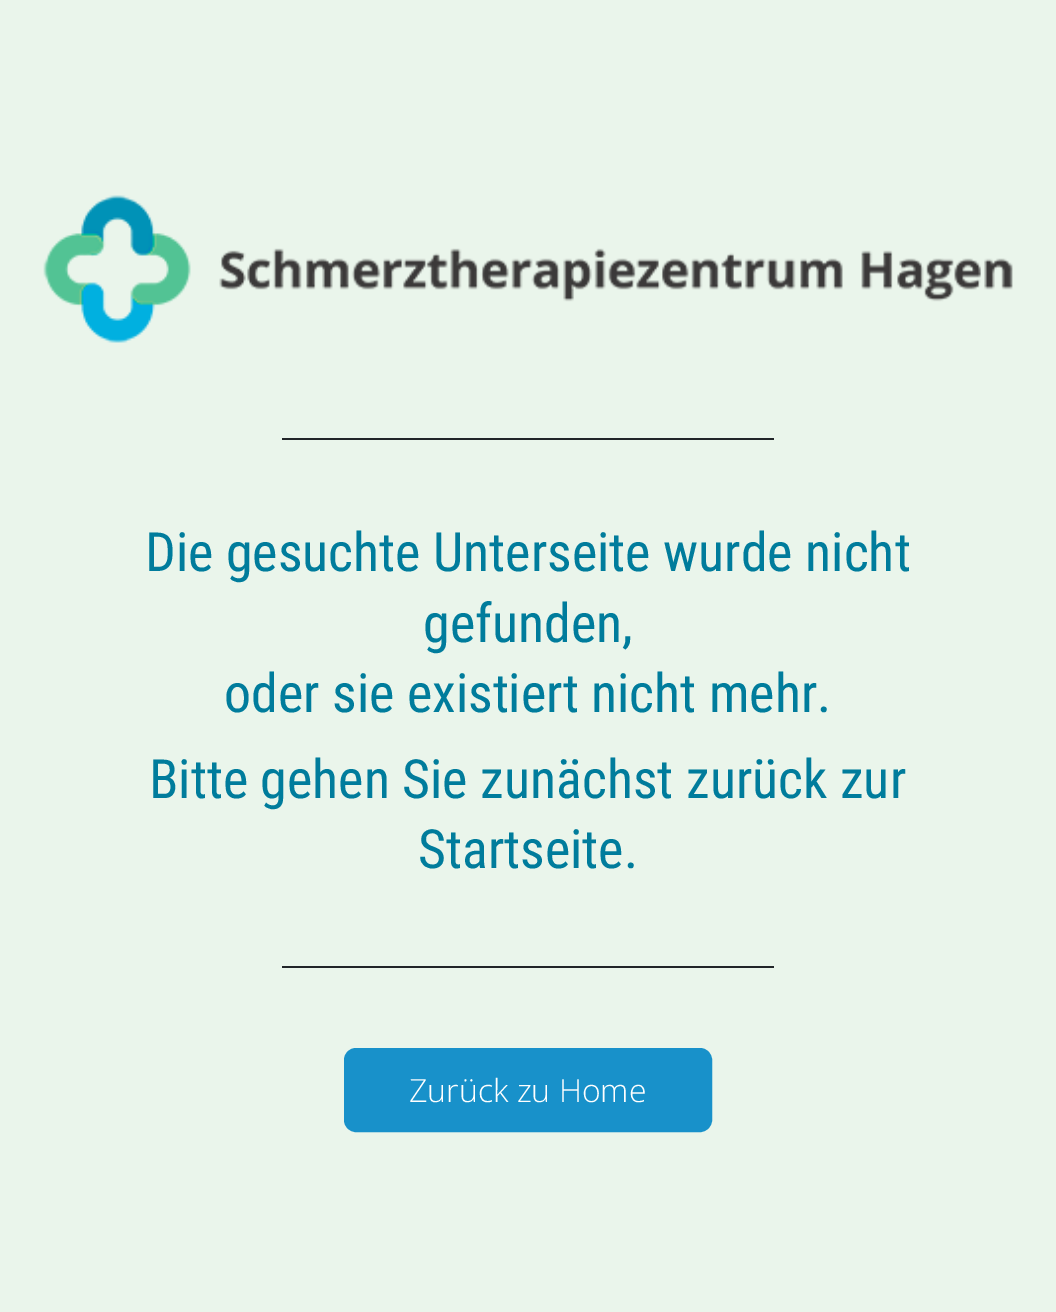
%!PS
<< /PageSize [1056 1312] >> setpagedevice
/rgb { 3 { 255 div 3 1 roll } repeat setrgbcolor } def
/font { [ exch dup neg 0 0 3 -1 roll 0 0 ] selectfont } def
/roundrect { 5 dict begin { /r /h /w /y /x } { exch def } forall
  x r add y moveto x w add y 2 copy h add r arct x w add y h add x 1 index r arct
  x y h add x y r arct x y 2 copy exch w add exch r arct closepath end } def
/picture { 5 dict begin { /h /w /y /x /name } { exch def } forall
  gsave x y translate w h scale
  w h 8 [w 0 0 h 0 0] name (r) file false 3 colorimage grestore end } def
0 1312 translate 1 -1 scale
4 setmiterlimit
234 245 235 rgb
0 0 1056 1312 rectfill
(img/1.rgb) 43 195 970 148 picture
33 37 41 rgb
282 438 492 2 rectfill
282 966 492 2 rectfill
24 145 202 rgb
345 1049 366 82 11 roundrect gsave fill grestore
2 setlinewidth
stroke
/RobotoCondensed-Regular 54 font
0 124 156 rgb
[
  [(Die gesuchte Unterseite wurde nicht) 145 571]
  [(gefunden,) 423 642]
  [(oder sie existiert nicht mehr.) 224 712]
  [(Bitte gehen Sie zunächst zurück zur) 149 798]
  [(Startseite.) 418 868]
] { aload pop moveto show } forall
/OpenSans-Light 32 font
255 255 255 rgb
409 1102 moveto (Zurück zu Home) show
showpage
